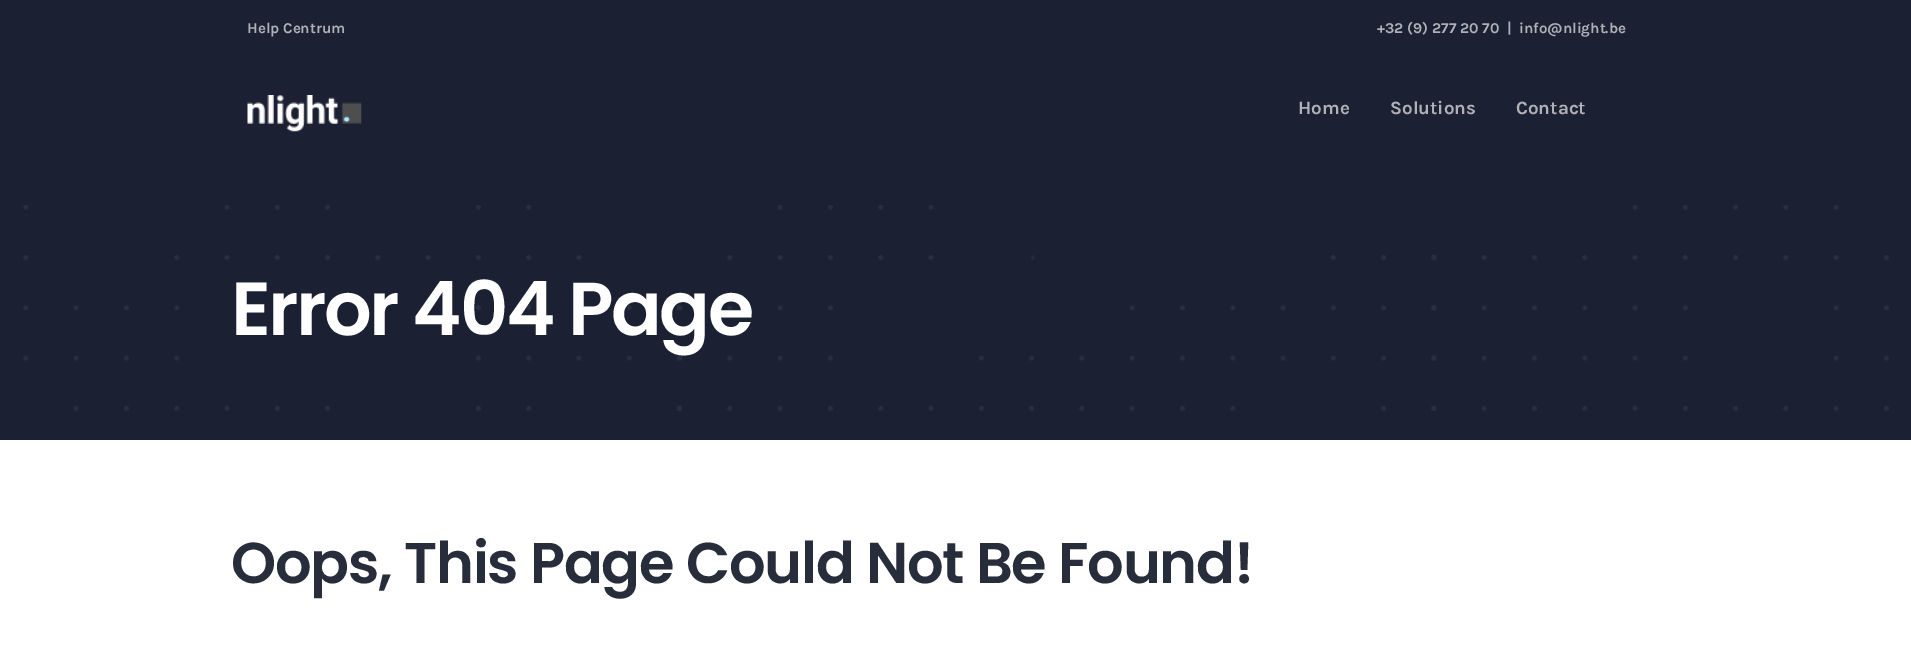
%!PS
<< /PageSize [1911 649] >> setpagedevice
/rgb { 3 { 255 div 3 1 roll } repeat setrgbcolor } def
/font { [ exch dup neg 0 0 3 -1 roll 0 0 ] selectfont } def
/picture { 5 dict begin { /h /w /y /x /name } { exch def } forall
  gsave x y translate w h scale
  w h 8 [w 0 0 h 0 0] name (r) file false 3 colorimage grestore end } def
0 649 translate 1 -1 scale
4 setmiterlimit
27 32 50 rgb
0 0 1911 649 rectfill
(img/1.rgb) 247 95 115 37 picture
(img/2.rgb) 23 205 1866 206 picture
255 255 255 rgb
0 440 1911 209 rectfill
/Karla-Bold 15 font
175 177 183 rgb
[
  [(Help Centrum) 247 33]
  [(+32 \(9\) 277 20 70) 1377 33]
  [(|) 1507 33]
  [(info@nlight.be) 1519 33]
] { aload pop moveto show } forall
/Karla-Bold 18.75 font
[
  [(Home) 1298 114]
  [(Solutions) 1390 114]
  [(Contact) 1516 114]
] { aload pop moveto show } forall
/Poppins-SemiBold 75 font
255 255 255 rgb
231 335 moveto -2.5 0 (Error 404 Page) ashow
/Poppins-SemiBold 57.5 font
39 45 58 rgb
231 583 moveto -1.25 0 (Oops, This Page Could Not Be Found!) ashow
showpage
